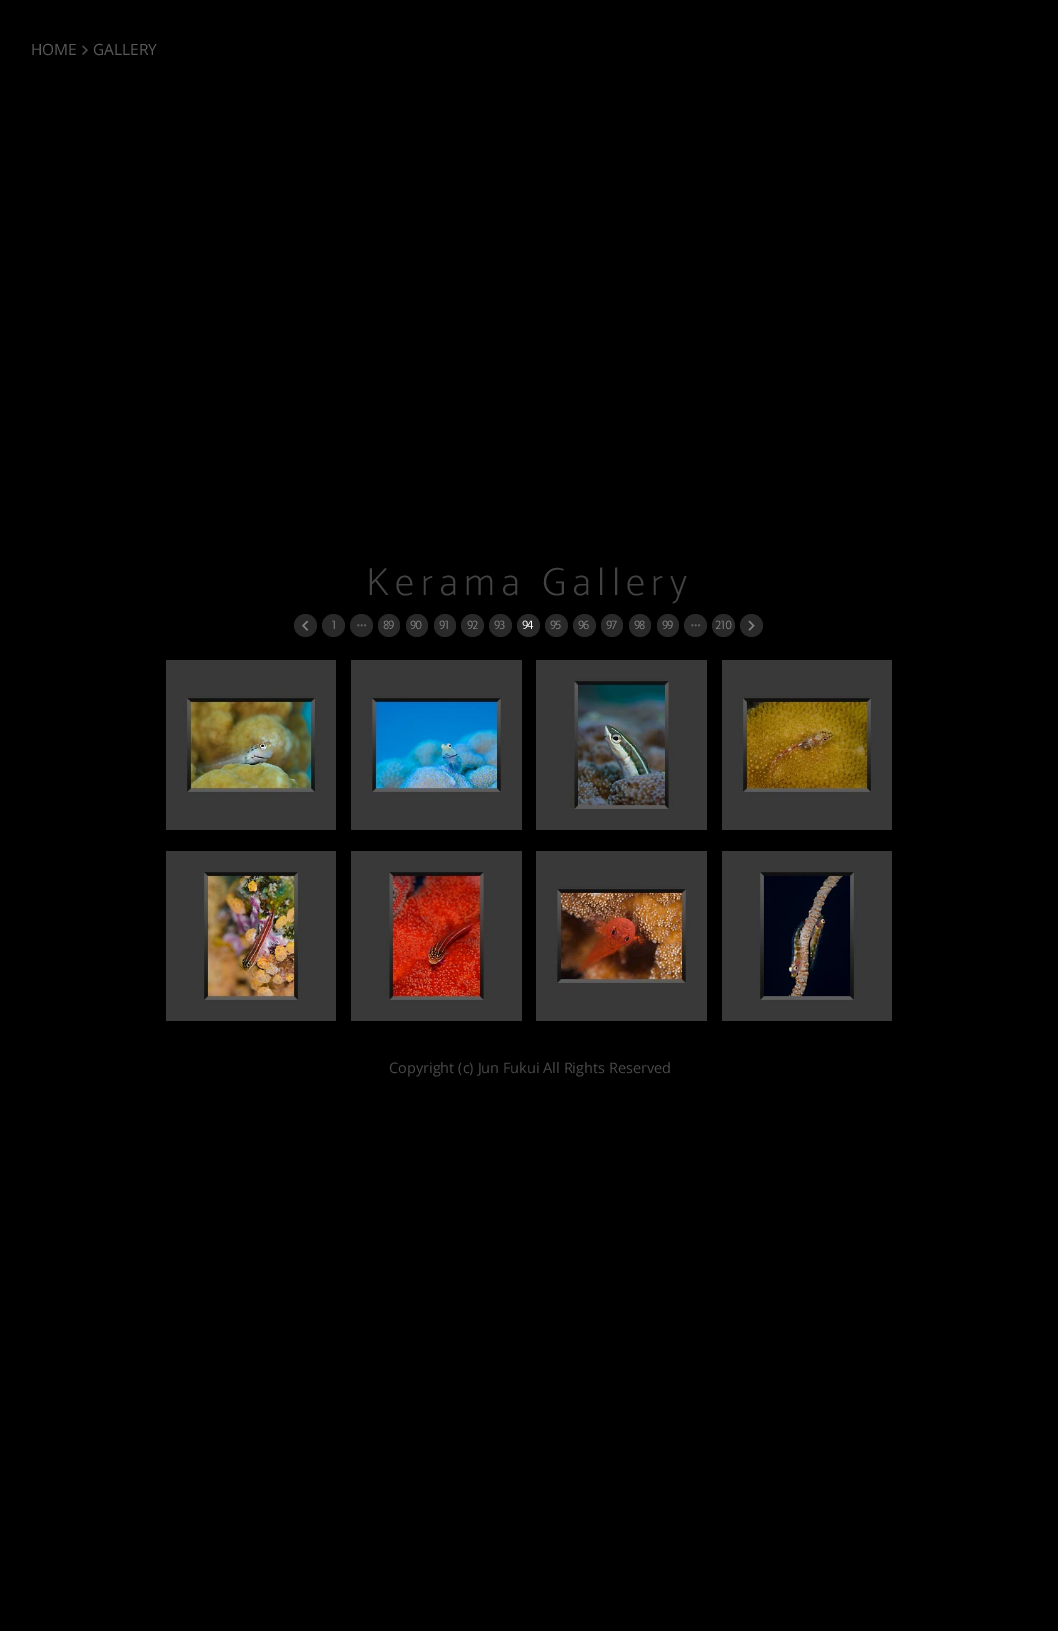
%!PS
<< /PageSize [1058 1631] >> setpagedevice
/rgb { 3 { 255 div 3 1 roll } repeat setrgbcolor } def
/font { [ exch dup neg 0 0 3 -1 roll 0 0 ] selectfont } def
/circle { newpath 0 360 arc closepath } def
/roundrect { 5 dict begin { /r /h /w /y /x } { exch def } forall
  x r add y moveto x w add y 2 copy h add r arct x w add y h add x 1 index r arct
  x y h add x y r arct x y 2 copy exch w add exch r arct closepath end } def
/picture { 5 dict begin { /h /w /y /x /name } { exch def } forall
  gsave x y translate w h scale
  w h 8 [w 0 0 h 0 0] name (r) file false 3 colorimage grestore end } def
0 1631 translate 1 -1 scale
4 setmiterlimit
0 0 0 rgb
0 0 1058 1631 rectfill
(img/1.rgb) 82 45 6 10 picture
41 41 41 rgb
305.5 625.5 11.5 circle fill
(img/2.rgb) 302 620 7 11 picture
333.5 625.5 11.5 circle fill
361.5 625.5 11.5 circle fill
(img/3.rgb) 357 624 10 3 picture
378 614 22 23 11 roundrect fill
406 614 22 23 11 roundrect fill
434 614 22 23 11 roundrect fill
472.5 625.5 11.5 circle fill
500.5 625.5 11.5 circle fill
528.5 625.5 11.5 circle fill
556.5 625.5 11.5 circle fill
584.5 625.5 11.5 circle fill
601 614 22 23 11 roundrect fill
629 614 22 23 11 roundrect fill
657 614 22 23 11 roundrect fill
695.5 625.5 11.5 circle fill
(img/3.rgb) 691 624 10 3 picture
723.5 625.5 11.5 circle fill
751.5 625.5 11.5 circle fill
(img/4.rgb) 748 620 7 11 picture
(img/5.rgb) 166 660 170 170 picture
(img/6.rgb) 351 660 171 170 picture
(img/7.rgb) 536 660 171 170 picture
(img/8.rgb) 722 660 170 170 picture
(img/9.rgb) 166 851 170 170 picture
(img/10.rgb) 351 851 171 170 picture
(img/11.rgb) 536 851 171 170 picture
(img/12.rgb) 722 851 170 170 picture
/OpenSans-Regular 15.5 font
90 90 90 rgb
31 55 moveto (HOME) show
93 55 moveto (GALLERY) show
/Catamaran-Thin 39.25 font
66 66 66 rgb
366 595 moveto 6.25 0 (Kerama Gallery) ashow
/DuruSans-Regular 11 font
130 130 130 rgb
331 629 moveto -1 0 (1) ashow
383 629 moveto -1 0 (89) ashow
410 629 moveto -1 0 (90) ashow
439 629 moveto -1 0 (91) ashow
467 629 moveto -1 0 (92) ashow
494 629 moveto -1 0 (93) ashow
255 255 255 rgb
522 629 moveto -1 0 (94) ashow
130 130 130 rgb
550 629 moveto -1 0 (95) ashow
578 629 moveto -1 0 (96) ashow
606 629 moveto -1 0 (97) ashow
634 629 moveto -1 0 (98) ashow
662 629 moveto -1 0 (99) ashow
715 629 moveto -1 0 (210) ashow
/OpenSans-Regular 14.5 font
74 74 74 rgb
389 1073 moveto (Copyright \(c\) Jun Fukui All Rights Reserved) show
showpage
